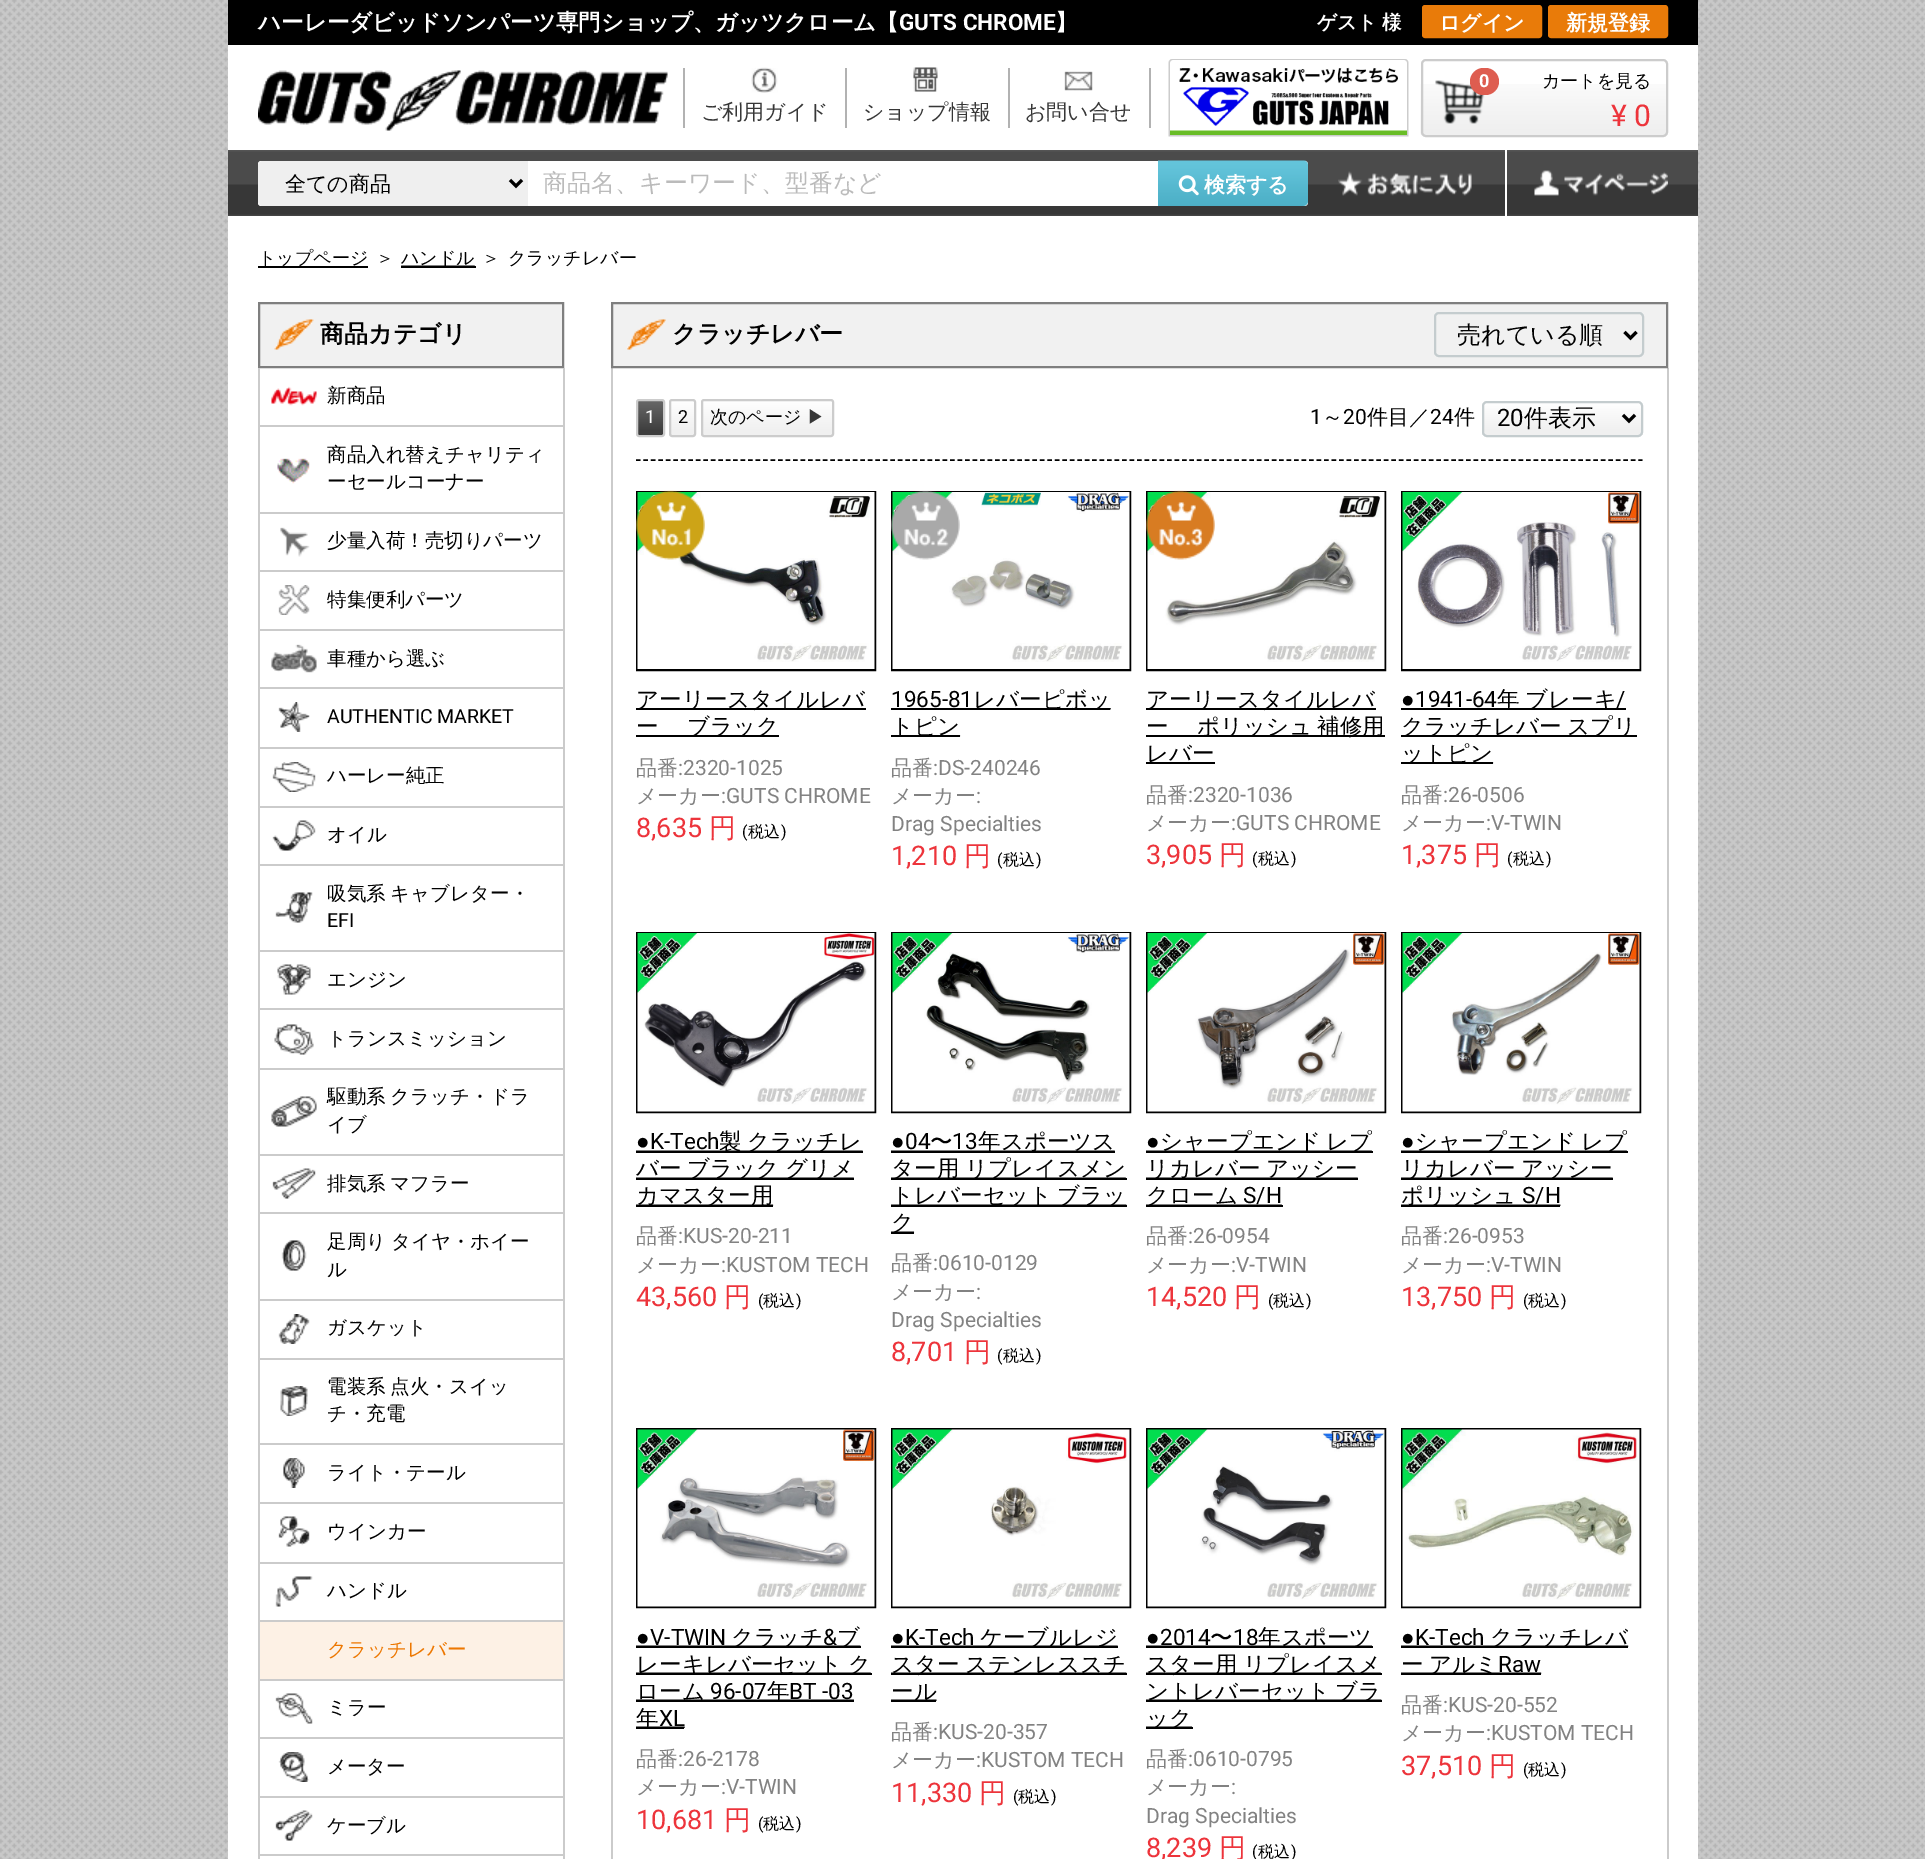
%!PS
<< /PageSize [1925 1859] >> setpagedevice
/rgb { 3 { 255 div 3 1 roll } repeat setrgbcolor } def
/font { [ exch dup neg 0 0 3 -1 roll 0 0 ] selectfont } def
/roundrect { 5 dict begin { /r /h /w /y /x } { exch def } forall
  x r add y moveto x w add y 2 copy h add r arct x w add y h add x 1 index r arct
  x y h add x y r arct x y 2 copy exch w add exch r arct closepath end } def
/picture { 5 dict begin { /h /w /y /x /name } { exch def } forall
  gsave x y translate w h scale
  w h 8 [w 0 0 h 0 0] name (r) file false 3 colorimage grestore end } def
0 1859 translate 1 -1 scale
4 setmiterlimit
255 255 255 rgb
0 0 1925 1859 rectfill
(img/1.rgb) 0 0 1925 1859 picture
228 45 1470 201 rectfill
0 0 0 rgb
228 0 1470 45 rectfill
233 123 9 rgb
1423 6 118 31 2 roundrect gsave fill grestore
2 setlinewidth
stroke
1549 6 118 31 2 roundrect gsave fill grestore
stroke
(img/2.rgb) 258 70 410 61 picture
178 178 178 rgb
683 68 2 60 rectfill
(img/3.rgb) 751 67 27 26 picture
845 68 2 60 rectfill
(img/4.rgb) 913 67 25 25 picture
1008 68 2 60 rectfill
(img/5.rgb) 1064 71 29 20 picture
1149 68 2 60 rectfill
(img/6.rgb) 1168 59 241 78 picture
(img/7.rgb) 1420 84 248 53 picture
204 204 204 rgb
1422 60 245 76 4 roundrect stroke
(img/8.rgb) 1435 80 50 44 picture
222 93 80 rgb
1470 68 29 27 13.5 roundrect fill
68 68 68 rgb
228 215 1470 1 rectfill
(img/9.rgb) 228 150 1470 65 picture
255 255 255 rgb
258 161 1050 45 3 roundrect fill
239 239 239 rgb
263 161 moveto 528 161 lineto 528 206 lineto 263 206 lineto 260 206 258 204 258 201 curveto 258 166 lineto 258 163 260 161 263 161 curveto closepath fill
0 0 0 rgb
3 setlinewidth
510 180 moveto 516 186 lineto 522 180 lineto stroke
77 176 198 rgb
1158 161 moveto 1303 161 lineto 1306 161 1308 163 1308 166 curveto 1308 201 lineto 1308 204 1306 206 1303 206 curveto 1158 206 lineto closepath fill
(img/10.rgb) 1158 160 150 46 picture
(img/11.rgb) 1178 175 21 21 picture
(img/12.rgb) 1338 171 134 25 picture
255 255 255 rgb
1505 150 2 66 rectfill
(img/13.rgb) 1534 170 134 26 picture
[
  [228 246 1470 1613 255 255 255]
  [258 266 110 2 0 0 0]
  [401 266 75 2 0 0 0]
] { aload pop rgb rectfill } forall
(img/14.rgb) 401 265 74 1 picture
241 241 241 rgb
260 304 302 62 rectfill
(img/15.rgb) 274 319 40 31 picture
127 127 127 rgb
2 setlinewidth
259 303 304 64 rectstroke
203 203 203 rgb
563 368 2 1491 rectfill
258 368 2 1491 rectfill
(img/16.rgb) 271 386 46 20 picture
260 425 303 2 rectfill
(img/17.rgb) 277 458 33 26 picture
260 512 303 2 rectfill
(img/18.rgb) 280 527 30 30 picture
260 570 303 2 rectfill
(img/19.rgb) 278 585 32 30 picture
260 629 303 2 rectfill
(img/20.rgb) 271 644 46 29 picture
260 687 303 2 rectfill
(img/21.rgb) 278 702 32 30 picture
260 747 303 2 rectfill
(img/22.rgb) 272 762 44 30 picture
260 806 303 2 rectfill
(img/23.rgb) 272 820 44 31 picture
260 864 303 2 rectfill
(img/24.rgb) 275 892 38 31 picture
260 950 303 2 rectfill
(img/25.rgb) 277 964 34 31 picture
260 1008 303 2 rectfill
(img/26.rgb) 274 1024 40 31 picture
260 1068 303 2 rectfill
(img/27.rgb) 271 1096 46 31 picture
260 1154 303 2 rectfill
(img/28.rgb) 272 1168 44 31 picture
260 1212 303 2 rectfill
(img/29.rgb) 281 1240 26 31 picture
260 1299 303 2 rectfill
(img/30.rgb) 278 1314 32 30 picture
260 1358 303 2 rectfill
(img/31.rgb) 280 1386 28 30 picture
260 1443 303 2 rectfill
(img/32.rgb) 283 1458 22 30 picture
260 1502 303 2 rectfill
(img/33.rgb) 278 1516 32 31 picture
260 1562 303 2 rectfill
(img/34.rgb) 275 1576 38 31 picture
[
  [260 1622 303 57 253 241 229]
  [260 1620 303 2 203 203 203]
  [260 1679 303 2 203 203 203]
] { aload pop rgb rectfill } forall
(img/35.rgb) 275 1693 38 31 picture
260 1737 303 2 rectfill
(img/36.rgb) 278 1752 32 30 picture
260 1796 303 2 rectfill
(img/37.rgb) 275 1810 38 31 picture
[
  [260 1854 303 2 203 203 203]
  [1667 368 2 1491 203 203 203]
  [611 368 2 1491 203 203 203]
] { aload pop rgb rectfill } forall
0 0 0 rgb
1.5 setlinewidth
[4.5 2.98] 0 setdash
636 460 moveto 1642.5 460 lineto stroke
241 241 241 rgb
613 304 1053 62 rectfill
(img/63.rgb) 627 319 39 31 picture
127 127 127 rgb
2 setlinewidth
[] 0 setdash
612 303 1055 64 rectstroke
196 204 206 rgb
1435 313 208 43 4 roundrect stroke
0 0 0 rgb
3 setlinewidth
1624.5 332 moveto 1630.5 338 lineto 1636.5 332 lineto stroke
gsave
636 399 29 38 3 roundrect clip newpath
gsave 636 401 moveto 665 401 lineto 665 435 lineto 636 435 lineto closepath clip newpath
<< /ShadingType 2 /ColorSpace /DeviceRGB /Coords [650 401 650 435] /Extend [true true] /Function << /FunctionType 3 /Domain [0 1] /Functions [<< /FunctionType 2 /Domain [0 1] /C0 [0.404 0.404 0.404] /C1 [0.243 0.243 0.243] /N 1 >> << /FunctionType 2 /Domain [0 1] /C0 [0.243 0.243 0.243] /C1 [0.243 0.243 0.243] /N 1 >>] /Bounds [0.88] /Encode [0 1 0 1] >> >> shfill grestore
grestore
204 204 204 rgb
2 setlinewidth
637 400 27 36 2 roundrect stroke
gsave
669 399 27 38 3 roundrect clip newpath
gsave 669 401 moveto 696 401 lineto 696 435 lineto 669 435 lineto closepath clip newpath
<< /ShadingType 2 /ColorSpace /DeviceRGB /Coords [683 401 683 435] /Extend [true true] /Function << /FunctionType 3 /Domain [0 1] /Functions [<< /FunctionType 2 /Domain [0 1] /C0 [1 1 1] /C1 [0.941 0.941 0.941] /N 1 >> << /FunctionType 2 /Domain [0 1] /C0 [0.941 0.941 0.941] /C1 [0.941 0.941 0.941] /N 1 >>] /Bounds [0.88] /Encode [0 1 0 1] >> >> shfill grestore
grestore
670 400 25 36 2 roundrect stroke
gsave
701 399 133 38 3 roundrect clip newpath
gsave 701 401 moveto 834 401 lineto 834 435 lineto 701 435 lineto closepath clip newpath
<< /ShadingType 2 /ColorSpace /DeviceRGB /Coords [767 401 767 435] /Extend [true true] /Function << /FunctionType 3 /Domain [0 1] /Functions [<< /FunctionType 2 /Domain [0 1] /C0 [1 1 1] /C1 [0.941 0.941 0.941] /N 1 >> << /FunctionType 2 /Domain [0 1] /C0 [0.941 0.941 0.941] /C1 [0.941 0.941 0.941] /N 1 >>] /Bounds [0.88] /Encode [0 1 0 1] >> >> shfill grestore
grestore
702 400 131 36 2 roundrect stroke
gsave
1482 401 161 36 5 roundrect clip newpath
gsave 1482 402 moveto 1643 402 lineto 1643 435 lineto 1482 435 lineto closepath clip newpath
<< /ShadingType 2 /ColorSpace /DeviceRGB /Coords [1562 402 1562 435] /Extend [true true] /Function << /FunctionType 3 /Domain [0 1] /Functions [<< /FunctionType 2 /Domain [0 1] /C0 [1 1 1] /C1 [0.941 0.941 0.941] /N 1 >> << /FunctionType 2 /Domain [0 1] /C0 [0.941 0.941 0.941] /C1 [0.941 0.941 0.941] /N 1 >>] /Bounds [0.88] /Encode [0 1 0 1] >> >> shfill grestore
grestore
196 204 206 rgb
1483 402 159 34 4 roundrect stroke
0 0 0 rgb
3 setlinewidth
1623 415 moveto 1629 421 lineto 1635 415 lineto stroke
2 setlinewidth
637 492 238 178 rectstroke
(img/39.rgb) 637 492 238 177 picture
(img/38.rgb) 636 490 69 70 picture
636 708 230 2 rectfill
636 735 143 2 rectfill
892 492 238 178 rectstroke
(img/41.rgb) 892 492 238 177 picture
(img/40.rgb) 891 490 69 70 picture
(img/42.rgb) 960 708 151 29 picture
891 708 219 2 rectfill
891 735 69 2 rectfill
1147 492 238 178 rectstroke
(img/44.rgb) 1147 492 238 177 picture
(img/43.rgb) 1146 490 69 70 picture
[
  [1146 708 230 2 0 0 0]
  [1146 735 239 2 0 0 0]
  [1146 762 69 2 0 0 0]
] { aload pop rgb rectfill } forall
1402 492 238 178 rectstroke
(img/45.rgb) 1402 492 238 177 picture
(img/46.rgb) 1493 762 1 2 picture
[
  [1401 708 225 2 0 0 0]
  [1401 735 236 2 0 0 0]
  [1401 762 92 2 0 0 0]
] { aload pop rgb rectfill } forall
637 933 238 179 rectstroke
(img/47.rgb) 637 933 238 179 picture
(img/48.rgb) 636 1150 227 56 picture
[
  [636 1151 227 2 0 0 0]
  [636 1178 218 2 0 0 0]
  [636 1206 137 1 0 0 0]
] { aload pop rgb rectfill } forall
892 933 238 179 rectstroke
(img/49.rgb) 892 933 238 179 picture
(img/50.rgb) 891 1150 236 83 picture
[
  [891 1151 224 2 0 0 0]
  [891 1178 236 2 0 0 0]
  [891 1205 236 2 0 0 0]
  [891 1233 23 1 0 0 0]
] { aload pop rgb rectfill } forall
1147 933 238 179 rectstroke
(img/51.rgb) 1147 933 238 179 picture
(img/52.rgb) 1146 1150 226 55 picture
[
  [1146 1151 227 2 0 0 0]
  [1146 1178 212 2 0 0 0]
  [1146 1205 137 2 0 0 0]
] { aload pop rgb rectfill } forall
1402 933 238 179 rectstroke
(img/53.rgb) 1402 933 238 179 picture
(img/54.rgb) 1401 1150 226 56 picture
[
  [1401 1151 227 2 0 0 0]
  [1401 1178 212 2 0 0 0]
  [1401 1206 159 1 0 0 0]
] { aload pop rgb rectfill } forall
637 1429 238 178 rectstroke
(img/55.rgb) 637 1429 238 178 picture
(img/56.rgb) 636 1645 235 83 picture
[
  [636 1646 225 2 0 0 0]
  [636 1673 236 2 0 0 0]
  [636 1700 218 2 0 0 0]
  [636 1728 48 1 0 0 0]
] { aload pop rgb rectfill } forall
892 1429 238 178 rectstroke
(img/57.rgb) 892 1429 238 178 picture
(img/58.rgb) 891 1645 236 56 picture
[
  [891 1646 227 2 0 0 0]
  [891 1673 236 2 0 0 0]
  [891 1701 45 1 0 0 0]
] { aload pop rgb rectfill } forall
1147 1429 238 178 rectstroke
(img/59.rgb) 1147 1429 238 178 picture
(img/60.rgb) 1146 1645 236 82 picture
[
  [1146 1646 227 2 0 0 0]
  [1146 1673 236 2 0 0 0]
  [1146 1700 236 2 0 0 0]
  [1146 1727 47 2 0 0 0]
] { aload pop rgb rectfill } forall
1402 1429 238 178 rectstroke
(img/61.rgb) 1402 1429 238 178 picture
(img/62.rgb) 1401 1645 228 29 picture
1401 1647 227 1 rectfill
1401 1674 140 1 rectfill
/WenQuanYiZenHei-Bold 22.5 font
255 255 255 rgb
258 30 moveto (ハーレーダビッドソンパーツ専門ショップ、ガッツクローム【) show
/Roboto-Bold 22.5 font
899 30 moveto (GUTS CHROME) show
/WenQuanYiZenHei-Bold 22.5 font
1055 30 moveto (】) show
/WenQuanYiZenHei-Bold 19.5 font
1317 29 moveto -1 0 32 (ゲスト 様) widthshow
/WenQuanYiZenHei-Bold 21 font
1439 30 moveto (ログイン) show
1566 30 moveto (新規登録) show
/WenQuanYiZenHei-Medium 21 font
55 55 55 rgb
[
  [(ご利用ガイド) 701 119]
  [(ショップ情報) 863 119]
  [(お問い合せ) 1025 119]
] { aload pop moveto show } forall
/Roboto-Bold 18 font
255 255 255 rgb
1479 87 moveto (0) show
/WenQuanYiZenHei-Medium 18 font
0 0 0 rgb
1542 87 moveto (カートを見る) show
/Roboto-Regular 30 font
237 52 59 rgb
1611 126 moveto (¥ 0) show
/WenQuanYiZenHei-Medium 21 font
0 0 0 rgb
285 191 moveto (全ての商品) show
/WenQuanYiZenHei-Medium 24 font
187 187 187 rgb
543 191 moveto (商品名、キーワード、型番など) show
/WenQuanYiZenHei-Bold 21 font
255 255 255 rgb
1204 192 moveto (検索する) show
/WenQuanYiZenHei-Medium 18 font
0 0 0 rgb
[
  [(トップページ) 258 264]
  [(＞) 376 264]
  [(ハンドル) 401 264]
  [(＞) 482 264]
  [(クラッチレバー) 508 264]
] { aload pop moveto show } forall
/WenQuanYiZenHei-Bold 24 font
320 342 moveto (商品カテゴリ) show
/WenQuanYiZenHei-Medium 19.5 font
[
  [(新商品) 327 402]
  [(商品入れ替えチャリティ) 327 461]
  [(ーセールコーナー) 327 488]
  [(少量入荷！売切りパーツ) 327 547]
  [(特集便利パーツ) 327 606]
  [(車種から選ぶ) 327 665]
] { aload pop moveto show } forall
/Roboto-Regular 19.5 font
327 723 moveto (AUTHENTIC MARKET) show
/WenQuanYiZenHei-Medium 19.5 font
327 782 moveto (ハーレー純正) show
327 841 moveto (オイル) show
327 900 moveto -1 0 32 (吸気系 キャブレター・) widthshow
/Roboto-Regular 19.5 font
327 927 moveto (EFI) show
/WenQuanYiZenHei-Medium 19.5 font
327 986 moveto (エンジン) show
327 1045 moveto (トランスミッション) show
327 1103 moveto -1 0 32 (駆動系 クラッチ・ドラ) widthshow
327 1131 moveto (イブ) show
327 1190 moveto -1 0 32 (排気系 マフラー) widthshow
327 1248 moveto -1 0 32 (足周り タイヤ・ホイー) widthshow
327 1276 moveto (ル) show
327 1334 moveto (ガスケット) show
327 1393 moveto -1 0 32 (電装系 点火・スイッ) widthshow
[
  [(チ・充電) 327 1420]
  [(ライト・テール) 327 1479]
  [(ウインカー) 327 1538]
  [(ハンドル) 327 1597]
] { aload pop moveto show } forall
237 119 0 rgb
327 1656 moveto (クラッチレバー) show
0 0 0 rgb
[
  [(ミラー) 327 1714]
  [(メーター) 327 1773]
  [(ケーブル) 327 1832]
] { aload pop moveto show } forall
/WenQuanYiZenHei-Medium 24 font
1457 343 moveto (売れている順) show
/Roboto-Regular 18 font
255 255 255 rgb
645 423 moveto (1) show
0 0 0 rgb
678 423 moveto (2) show
/WenQuanYiZenHei-Medium 18 font
710 423 moveto (次のページ) show
55 55 55 rgb
807 423 moveto (▶) show
/Roboto-Regular 21 font
0 0 0 rgb
1310 424 moveto (1) show
/WenQuanYiZenHei-Medium 21 font
1322 424 moveto (～) show
/Roboto-Regular 21 font
1343 424 moveto (20) show
/WenQuanYiZenHei-Medium 21 font
1367 424 moveto (件目／) show
/Roboto-Regular 21 font
1430 424 moveto (24) show
/WenQuanYiZenHei-Medium 21 font
1454 424 moveto (件) show
/Roboto-Regular 24 font
1497 426 moveto (20) show
/WenQuanYiZenHei-Medium 24 font
1524 426 moveto (件表示) show
/WenQuanYiZenHei-Medium 22.5 font
636 707 moveto (アーリースタイルレバ) show
636 734 moveto -1 0 32 (ー 　ブラック) widthshow
/WenQuanYiZenHei-Medium 21 font
130 130 130 rgb
636 775 moveto (品番) show
/Roboto-Regular 21 font
678 775 moveto (:2320-1025) show
/WenQuanYiZenHei-Medium 21 font
636 803 moveto (メーカー) show
/Roboto-Regular 21 font
721 803 moveto (:GUTS CHROME) show
/Roboto-Regular 27 font
237 52 59 rgb
636 837 moveto (8,635) show
/WenQuanYiZenHei-Medium 27 font
709 837 moveto (円) show
/Roboto-Regular 16 font
0 0 0 rgb
742 837 moveto (\() show
/WenQuanYiZenHei-Medium 16 font
748 837 moveto (税込) show
/Roboto-Regular 16 font
781 837 moveto (\)) show
/Roboto-Regular 22.5 font
891 707 moveto (1965-81) show
/WenQuanYiZenHei-Medium 22.5 font
973 707 moveto (レバーピボッ) show
891 734 moveto (トピン) show
/WenQuanYiZenHei-Medium 21 font
130 130 130 rgb
891 775 moveto (品番) show
/Roboto-Regular 21 font
933 775 moveto (:DS-240246) show
/WenQuanYiZenHei-Medium 21 font
891 803 moveto (メーカー) show
/Roboto-Regular 21 font
976 803 moveto (:) show
891 831 moveto (Drag Specialties) show
/Roboto-Regular 27 font
237 52 59 rgb
891 865 moveto (1,210) show
/WenQuanYiZenHei-Medium 27 font
964 865 moveto (円) show
/Roboto-Regular 16 font
0 0 0 rgb
997 865 moveto (\() show
/WenQuanYiZenHei-Medium 16 font
1003 865 moveto (税込) show
/Roboto-Regular 16 font
1036 865 moveto (\)) show
/WenQuanYiZenHei-Medium 22.5 font
1146 707 moveto (アーリースタイルレバ) show
1146 734 moveto -1 0 32 (ー 　ポリッシュ) widthshow
1317 734 moveto (補修用) show
1146 761 moveto (レバー) show
/WenQuanYiZenHei-Medium 21 font
130 130 130 rgb
1146 802 moveto (品番) show
/Roboto-Regular 21 font
1188 802 moveto (:2320-1036) show
/WenQuanYiZenHei-Medium 21 font
1146 830 moveto (メーカー) show
/Roboto-Regular 21 font
1231 830 moveto (:GUTS CHROME) show
/Roboto-Regular 27 font
237 52 59 rgb
1146 864 moveto (3,905) show
/WenQuanYiZenHei-Medium 27 font
1219 864 moveto (円) show
/Roboto-Regular 16 font
0 0 0 rgb
1252 864 moveto (\() show
/WenQuanYiZenHei-Medium 16 font
1258 864 moveto (税込) show
/Roboto-Regular 16 font
1291 864 moveto (\)) show
/LiberationSans-Regular 22.5 font
1401 707 moveto (●) show
/Roboto-Regular 22.5 font
1415 707 moveto (1941-64) show
/WenQuanYiZenHei-Medium 22.5 font
1497 707 moveto -1 0 32 (年 ブレーキ) widthshow
/Roboto-Regular 22.5 font
1616 707 moveto (/) show
/WenQuanYiZenHei-Medium 22.5 font
1401 734 moveto -1 0 32 (クラッチレバー スプリ) widthshow
1401 761 moveto (ットピン) show
/WenQuanYiZenHei-Medium 21 font
130 130 130 rgb
1401 802 moveto (品番) show
/Roboto-Regular 21 font
1443 802 moveto (:26-0506) show
/WenQuanYiZenHei-Medium 21 font
1401 830 moveto (メーカー) show
/Roboto-Regular 21 font
1486 830 moveto (:V-TWIN) show
/Roboto-Regular 27 font
237 52 59 rgb
1401 864 moveto (1,375) show
/WenQuanYiZenHei-Medium 27 font
1474 864 moveto (円) show
/Roboto-Regular 16 font
0 0 0 rgb
1507 864 moveto (\() show
/WenQuanYiZenHei-Medium 16 font
1513 864 moveto (税込) show
/Roboto-Regular 16 font
1546 864 moveto (\)) show
/LiberationSans-Regular 22.5 font
636 1149 moveto (●) show
/Roboto-Regular 22.5 font
650 1149 moveto (K-Tech) show
/WenQuanYiZenHei-Medium 22.5 font
719 1149 moveto -1 0 32 (製 クラッチレ) widthshow
636 1176 moveto -1 0 32 (バー ブラック グリメ) widthshow
636 1203 moveto (カマスター用) show
/WenQuanYiZenHei-Medium 21 font
130 130 130 rgb
636 1243 moveto (品番) show
/Roboto-Regular 21 font
678 1243 moveto (:KUS-20-211) show
/WenQuanYiZenHei-Medium 21 font
636 1272 moveto (メーカー) show
/Roboto-Regular 21 font
721 1272 moveto (:KUSTOM TECH) show
/Roboto-Regular 27 font
237 52 59 rgb
636 1306 moveto (43,560) show
/WenQuanYiZenHei-Medium 27 font
724 1306 moveto (円) show
/Roboto-Regular 16 font
0 0 0 rgb
758 1306 moveto (\() show
/WenQuanYiZenHei-Medium 16 font
763 1306 moveto (税込) show
/Roboto-Regular 16 font
796 1306 moveto (\)) show
/LiberationSans-Regular 22.5 font
891 1149 moveto (●) show
/Roboto-Regular 22.5 font
905 1149 moveto (04) show
/WenQuanYiZenHei-Medium 22.5 font
930 1149 moveto (〜) show
/Roboto-Regular 22.5 font
952 1149 moveto (13) show
/WenQuanYiZenHei-Medium 22.5 font
978 1149 moveto (年スポーツス) show
891 1176 moveto -1 0 32 (ター用 リプレイスメン) widthshow
891 1203 moveto -1 0 32 (トレバーセット ブラッ) widthshow
891 1230 moveto (ク) show
/WenQuanYiZenHei-Medium 21 font
130 130 130 rgb
891 1270 moveto (品番) show
/Roboto-Regular 21 font
933 1270 moveto (:0610-0129) show
/WenQuanYiZenHei-Medium 21 font
891 1299 moveto (メーカー) show
/Roboto-Regular 21 font
976 1299 moveto (:) show
891 1327 moveto (Drag Specialties) show
/Roboto-Regular 27 font
237 52 59 rgb
891 1361 moveto (8,701) show
/WenQuanYiZenHei-Medium 27 font
964 1361 moveto (円) show
/Roboto-Regular 16 font
0 0 0 rgb
997 1361 moveto (\() show
/WenQuanYiZenHei-Medium 16 font
1003 1361 moveto (税込) show
/Roboto-Regular 16 font
1036 1361 moveto (\)) show
/LiberationSans-Regular 22.5 font
1146 1149 moveto (●) show
/WenQuanYiZenHei-Medium 22.5 font
1160 1149 moveto -1 0 32 (シャープエンド レプ) widthshow
1146 1176 moveto -1 0 32 (リカレバー アッシー) widthshow
1146 1203 moveto (クローム) show
/Roboto-Regular 22.5 font
1243 1203 moveto (S/H) show
/WenQuanYiZenHei-Medium 21 font
130 130 130 rgb
1146 1243 moveto (品番) show
/Roboto-Regular 21 font
1188 1243 moveto (:26-0954) show
/WenQuanYiZenHei-Medium 21 font
1146 1272 moveto (メーカー) show
/Roboto-Regular 21 font
1231 1272 moveto (:V-TWIN) show
/Roboto-Regular 27 font
237 52 59 rgb
1146 1306 moveto (14,520) show
/WenQuanYiZenHei-Medium 27 font
1234 1306 moveto (円) show
/Roboto-Regular 16 font
0 0 0 rgb
1268 1306 moveto (\() show
/WenQuanYiZenHei-Medium 16 font
1273 1306 moveto (税込) show
/Roboto-Regular 16 font
1306 1306 moveto (\)) show
/LiberationSans-Regular 22.5 font
1401 1149 moveto (●) show
/WenQuanYiZenHei-Medium 22.5 font
1415 1149 moveto -1 0 32 (シャープエンド レプ) widthshow
1401 1176 moveto -1 0 32 (リカレバー アッシー) widthshow
1401 1203 moveto (ポリッシュ) show
/Roboto-Regular 22.5 font
1522 1203 moveto (S/H) show
/WenQuanYiZenHei-Medium 21 font
130 130 130 rgb
1401 1243 moveto (品番) show
/Roboto-Regular 21 font
1443 1243 moveto (:26-0953) show
/WenQuanYiZenHei-Medium 21 font
1401 1272 moveto (メーカー) show
/Roboto-Regular 21 font
1486 1272 moveto (:V-TWIN) show
/Roboto-Regular 27 font
237 52 59 rgb
1401 1306 moveto (13,750) show
/WenQuanYiZenHei-Medium 27 font
1489 1306 moveto (円) show
/Roboto-Regular 16 font
0 0 0 rgb
1523 1306 moveto (\() show
/WenQuanYiZenHei-Medium 16 font
1528 1306 moveto (税込) show
/Roboto-Regular 16 font
1561 1306 moveto (\)) show
/LiberationSans-Regular 22.5 font
636 1645 moveto (●) show
/Roboto-Regular 22.5 font
650 1645 moveto (V-TWIN) show
/WenQuanYiZenHei-Medium 22.5 font
731 1645 moveto (クラッチ) show
/Roboto-Regular 22.5 font
823 1645 moveto (&) show
/WenQuanYiZenHei-Medium 22.5 font
837 1645 moveto (ブ) show
636 1672 moveto -1 0 32 (レーキレバーセット ク) widthshow
636 1699 moveto (ローム) show
/Roboto-Regular 22.5 font
710 1699 moveto (96-07) show
/WenQuanYiZenHei-Medium 22.5 font
767 1699 moveto (年) show
/Roboto-Regular 22.5 font
789 1699 moveto (BT -03) show
/WenQuanYiZenHei-Medium 22.5 font
636 1726 moveto (年) show
/Roboto-Regular 22.5 font
659 1726 moveto (XL) show
/WenQuanYiZenHei-Medium 21 font
130 130 130 rgb
636 1766 moveto (品番) show
/Roboto-Regular 21 font
678 1766 moveto (:26-2178) show
/WenQuanYiZenHei-Medium 21 font
636 1794 moveto (メーカー) show
/Roboto-Regular 21 font
721 1794 moveto (:V-TWIN) show
/Roboto-Regular 27 font
237 52 59 rgb
636 1829 moveto (10,681) show
/WenQuanYiZenHei-Medium 27 font
724 1829 moveto (円) show
/Roboto-Regular 16 font
0 0 0 rgb
758 1829 moveto (\() show
/WenQuanYiZenHei-Medium 16 font
763 1829 moveto (税込) show
/Roboto-Regular 16 font
796 1829 moveto (\)) show
/LiberationSans-Regular 22.5 font
891 1645 moveto (●) show
/Roboto-Regular 22.5 font
905 1645 moveto (K-Tech) show
/WenQuanYiZenHei-Medium 22.5 font
980 1645 moveto (ケーブルレジ) show
891 1672 moveto -1 0 32 (スター ステンレススチ) widthshow
891 1699 moveto (ール) show
/WenQuanYiZenHei-Medium 21 font
130 130 130 rgb
891 1739 moveto (品番) show
/Roboto-Regular 21 font
933 1739 moveto (:KUS-20-357) show
/WenQuanYiZenHei-Medium 21 font
891 1767 moveto (メーカー) show
/Roboto-Regular 21 font
976 1767 moveto (:KUSTOM TECH) show
/Roboto-Regular 27 font
237 52 59 rgb
891 1802 moveto (11,330) show
/WenQuanYiZenHei-Medium 27 font
979 1802 moveto (円) show
/Roboto-Regular 16 font
0 0 0 rgb
1013 1802 moveto (\() show
/WenQuanYiZenHei-Medium 16 font
1018 1802 moveto (税込) show
/Roboto-Regular 16 font
1051 1802 moveto (\)) show
/LiberationSans-Regular 22.5 font
1146 1645 moveto (●) show
/Roboto-Regular 22.5 font
1160 1645 moveto (2014) show
/WenQuanYiZenHei-Medium 22.5 font
1210 1645 moveto (〜) show
/Roboto-Regular 22.5 font
1233 1645 moveto (18) show
/WenQuanYiZenHei-Medium 22.5 font
1258 1645 moveto (年スポーツ) show
1146 1672 moveto -1 0 32 (スター用 リプレイスメ) widthshow
1146 1699 moveto -1 0 32 (ントレバーセット ブラ) widthshow
1146 1726 moveto (ック) show
/WenQuanYiZenHei-Medium 21 font
130 130 130 rgb
1146 1766 moveto (品番) show
/Roboto-Regular 21 font
1188 1766 moveto (:0610-0795) show
/WenQuanYiZenHei-Medium 21 font
1146 1794 moveto (メーカー) show
/Roboto-Regular 21 font
1231 1794 moveto (:) show
1146 1823 moveto (Drag Specialties) show
/Roboto-Regular 27 font
237 52 59 rgb
1146 1857 moveto (8,239) show
/WenQuanYiZenHei-Medium 27 font
1219 1857 moveto (円) show
/Roboto-Regular 16 font
0 0 0 rgb
1252 1857 moveto (\() show
/WenQuanYiZenHei-Medium 16 font
1258 1857 moveto (税込) show
/Roboto-Regular 16 font
1291 1857 moveto (\)) show
/LiberationSans-Regular 22.5 font
1401 1645 moveto (●) show
/Roboto-Regular 22.5 font
1415 1645 moveto (K-Tech) show
/WenQuanYiZenHei-Medium 22.5 font
1490 1645 moveto (クラッチレバ) show
1401 1672 moveto -1 0 32 (ー アルミ) widthshow
/Roboto-Regular 22.5 font
1498 1672 moveto (Raw) show
/WenQuanYiZenHei-Medium 21 font
130 130 130 rgb
1401 1712 moveto (品番) show
/Roboto-Regular 21 font
1443 1712 moveto (:KUS-20-552) show
/WenQuanYiZenHei-Medium 21 font
1401 1740 moveto (メーカー) show
/Roboto-Regular 21 font
1486 1740 moveto (:KUSTOM TECH) show
/Roboto-Regular 27 font
237 52 59 rgb
1401 1775 moveto (37,510) show
/WenQuanYiZenHei-Medium 27 font
1489 1775 moveto (円) show
/Roboto-Regular 16 font
0 0 0 rgb
1523 1775 moveto (\() show
/WenQuanYiZenHei-Medium 16 font
1528 1775 moveto (税込) show
/Roboto-Regular 16 font
1561 1775 moveto (\)) show
/WenQuanYiZenHei-Bold 24 font
672 342 moveto (クラッチレバー) show
showpage
